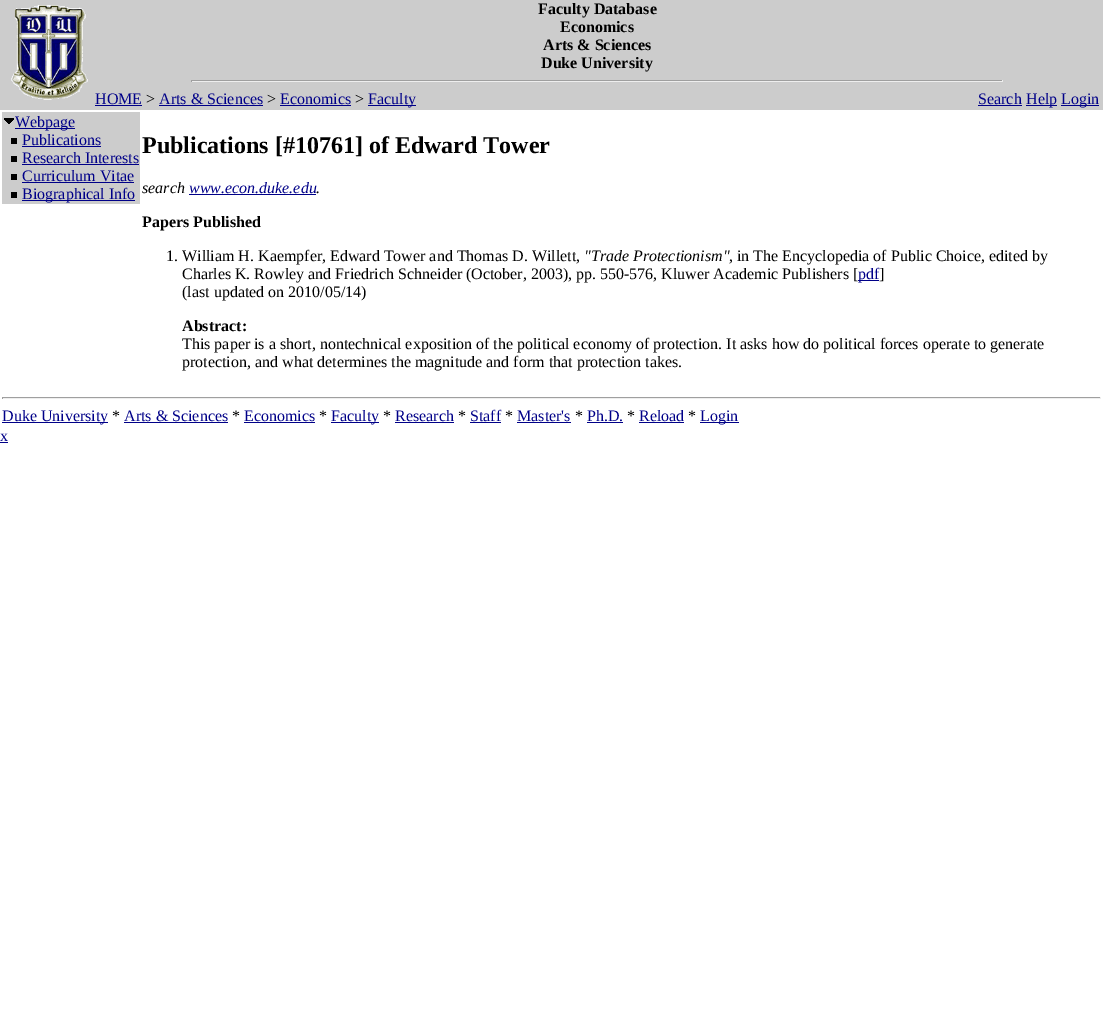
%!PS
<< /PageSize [1103 1009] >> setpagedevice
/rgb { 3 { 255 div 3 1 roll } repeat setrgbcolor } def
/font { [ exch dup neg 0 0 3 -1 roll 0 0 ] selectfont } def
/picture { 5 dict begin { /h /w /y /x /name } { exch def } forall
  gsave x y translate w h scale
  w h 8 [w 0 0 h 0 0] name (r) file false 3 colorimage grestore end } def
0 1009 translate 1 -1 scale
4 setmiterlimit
255 255 255 rgb
0 0 1103 1009 rectfill
204 204 204 rgb
0 0 1103 110 rectfill
(img/1.rgb) 11 5 77 95 picture
[
  [191 80 812 1 159 159 159]
  [1002 80 1 2 238 238 238]
  [191 81 812 1 238 238 238]
  [191 80 1 2 159 159 159]
  [95 105 47 1 0 0 136]
  [159 105 104 1 0 0 136]
  [280 105 71 1 0 0 136]
  [368 105 48 1 0 0 136]
  [978 105 44 1 0 0 136]
  [1026 105 31 1 0 0 136]
  [1061 105 38 1 0 0 136]
  [2 112 138 92 204 204 204]
] { aload pop rgb rectfill } forall
(img/2.rgb) 4 118 10 6 picture
[
  [15 128 60 1 0 0 136]
  [11 138 6 6 0 0 0]
  [22 146 79 1 0 0 136]
  [11 156 6 6 0 0 0]
  [22 164 117 1 0 0 136]
  [11 174 6 6 0 0 0]
  [22 182 112 1 0 0 136]
  [11 192 6 6 0 0 0]
  [22 200 113 1 0 0 136]
  [189 194 127 1 0 0 136]
  [858 280 21 1 0 0 136]
  [2 397 1099 1 159 159 159]
  [1100 397 1 2 238 238 238]
  [2 398 1099 1 238 238 238]
  [2 397 1 2 159 159 159]
  [2 422 106 1 0 0 136]
  [124 422 104 1 0 0 136]
  [244 422 71 1 0 0 136]
  [331 422 48 1 0 0 136]
  [395 422 59 1 0 0 136]
  [470 422 31 1 0 0 136]
  [517 422 54 1 0 0 136]
  [587 422 36 1 0 0 136]
  [639 422 45 1 0 0 136]
  [700 422 39 1 0 0 136]
  [0 442 8 1 0 0 136]
] { aload pop rgb rectfill } forall
/LiberationSerif-Bold 16 font
0 0 0 rgb
[
  [(Faculty Database) 538 14]
  [(Economics) 560 32]
  [(Arts & Sciences) 543 50]
  [(Duke University) 541 68]
] { aload pop moveto show } forall
/LiberationSerif-Regular 16 font
0 0 136 rgb
95 104 moveto (HOME) show
0 0 0 rgb
146 104 moveto (>) show
0 0 136 rgb
159 104 moveto (Arts & Sciences) show
0 0 0 rgb
267 104 moveto (>) show
0 0 136 rgb
280 104 moveto (Economics) show
0 0 0 rgb
355 104 moveto (>) show
0 0 136 rgb
[
  [(Faculty) 368 104]
  [(Search) 978 104]
  [(Help) 1026 104]
  [(Login) 1061 104]
  [(Webpage) 15 127]
  [(Publications) 22 145]
  [(Research Interests) 22 163]
  [(Curriculum Vitae) 22 181]
  [(Biographical Info) 22 199]
] { aload pop moveto show } forall
/LiberationSerif-Bold 24 font
0 0 0 rgb
142 153 moveto (Publications [#10761] of Edward Tower) show
/LiberationSerif-Italic 16 font
142 193 moveto (search) show
0 0 136 rgb
189 193 moveto (www.econ.duke.edu) show
0 0 0 rgb
316 193 moveto (.) show
/LiberationSerif-Bold 16 font
142 227 moveto (Papers Published) show
/LiberationSerif-Regular 16 font
166 261 moveto (1. William H. Kaempfer, Edward Tower and Thomas D. Willett,) show
/LiberationSerif-Italic 16 font
584 261 moveto ("Trade Protectionism") show
/LiberationSerif-Regular 16 font
729 261 moveto (, in The Encyclopedia of Public Choice, edited by) show
182 279 moveto (Charles K. Rowley and Friedrich Schneider \(October, 2003\), pp. 550-576, Kluwer Academic Publishers [) show
0 0 136 rgb
858 279 moveto (pdf) show
0 0 0 rgb
879 279 moveto (]) show
182 297 moveto (\(last updated on 2010/05/14\)) show
/LiberationSerif-Bold 16 font
182 331 moveto (Abstract:) show
/LiberationSerif-Regular 16 font
182 349 moveto (This paper is a short, nontechnical exposition of the political economy of protection. It asks how do political forces operate to generate) show
182 367 moveto (protection, and what determines the magnitude and form that protection takes.) show
0 0 136 rgb
2 421 moveto (Duke University) show
0 0 0 rgb
112 421 moveto (*) show
0 0 136 rgb
124 421 moveto (Arts & Sciences) show
0 0 0 rgb
232 421 moveto (*) show
0 0 136 rgb
244 421 moveto (Economics) show
0 0 0 rgb
319 421 moveto (*) show
0 0 136 rgb
331 421 moveto (Faculty) show
0 0 0 rgb
383 421 moveto (*) show
0 0 136 rgb
395 421 moveto (Research) show
0 0 0 rgb
458 421 moveto (*) show
0 0 136 rgb
470 421 moveto (Staff) show
0 0 0 rgb
505 421 moveto (*) show
0 0 136 rgb
517 421 moveto (Master's) show
0 0 0 rgb
575 421 moveto (*) show
0 0 136 rgb
587 421 moveto (Ph.D.) show
0 0 0 rgb
627 421 moveto (*) show
0 0 136 rgb
639 421 moveto (Reload) show
0 0 0 rgb
688 421 moveto (*) show
0 0 136 rgb
700 421 moveto (Login) show
0 441 moveto (x) show
showpage
